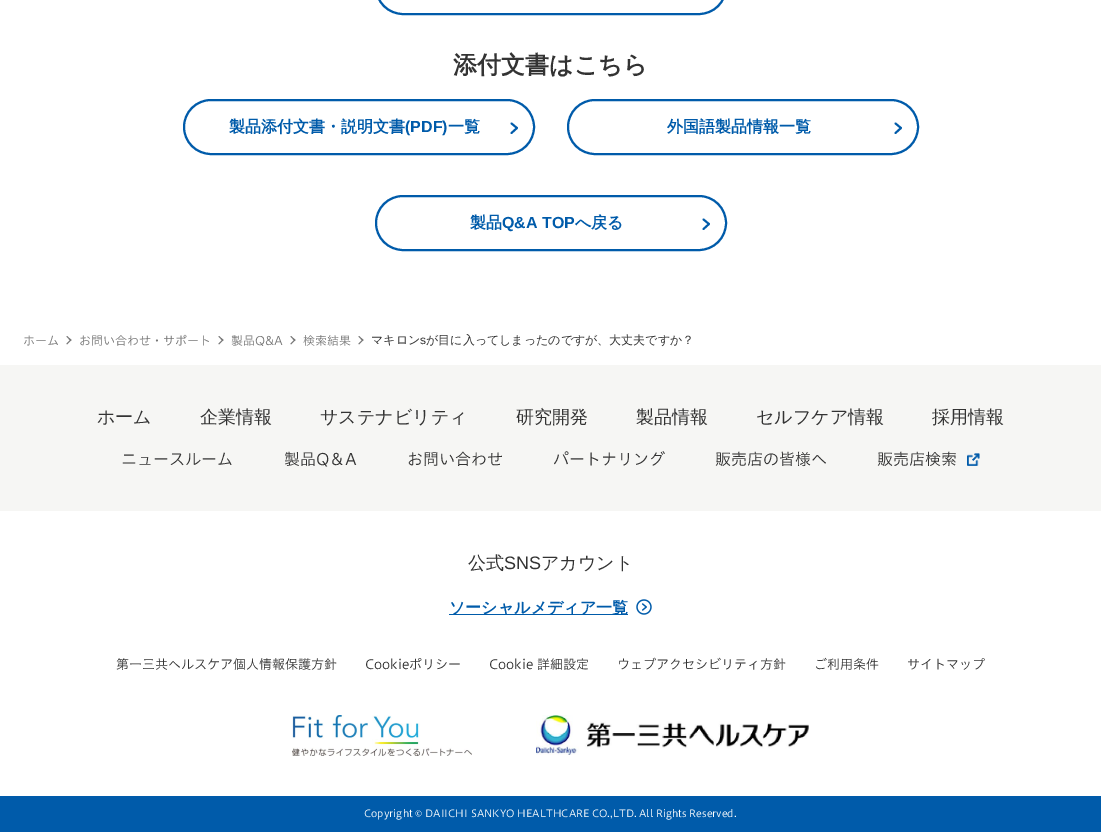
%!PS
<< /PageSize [1101 832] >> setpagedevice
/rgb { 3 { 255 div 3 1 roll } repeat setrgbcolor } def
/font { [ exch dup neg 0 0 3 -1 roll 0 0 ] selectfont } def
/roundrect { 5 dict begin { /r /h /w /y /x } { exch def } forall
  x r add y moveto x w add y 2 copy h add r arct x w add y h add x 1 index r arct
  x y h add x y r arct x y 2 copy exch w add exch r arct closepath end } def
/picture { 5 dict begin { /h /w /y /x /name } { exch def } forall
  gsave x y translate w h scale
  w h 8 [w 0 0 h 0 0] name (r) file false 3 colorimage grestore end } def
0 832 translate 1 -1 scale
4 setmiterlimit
255 255 255 rgb
0 0 1101 832 rectfill
0 91 170 rgb
2 setlinewidth
376 -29 350 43 27 roundrect stroke
184 100 350 54 27 roundrect stroke
1.9 setlinewidth
1 setlinecap
1 setlinejoin
511.5 133 moveto 517 128 lineto 511.5 123.5 lineto stroke
2 setlinewidth
0 setlinecap
0 setlinejoin
568 100 350 54 27 roundrect stroke
1.9 setlinewidth
1 setlinecap
1 setlinejoin
895.5 133 moveto 901 128 lineto 895.5 123.5 lineto stroke
2 setlinewidth
0 setlinecap
0 setlinejoin
376 196 350 54 27 roundrect stroke
1.9 setlinewidth
1 setlinecap
1 setlinejoin
703.5 229 moveto 709 224 lineto 703.5 219.5 lineto stroke
118 118 118 rgb
67 336 moveto 71.5 340 lineto 70.5 341 lineto 66.5 336.5 lineto closepath fill
70.5 339.5 moveto 71.5 340 lineto 67 344.5 lineto 66.5 343.5 lineto closepath fill
219 336 moveto 223.5 340 lineto 222.5 341 lineto 218.5 336.5 lineto closepath fill
222.5 339.5 moveto 223.5 340 lineto 219 344.5 lineto 218.5 343.5 lineto closepath fill
291 336 moveto 295.5 340 lineto 294.5 341 lineto 290.5 336.5 lineto closepath fill
294.5 339.5 moveto 295.5 340 lineto 291 344.5 lineto 290.5 343.5 lineto closepath fill
359 336 moveto 363.5 340 lineto 362.5 341 lineto 358.5 336.5 lineto closepath fill
362.5 339.5 moveto 363.5 340 lineto 359 344.5 lineto 358.5 343.5 lineto closepath fill
246 246 244 rgb
0 365 1101 146 rectfill
(img/1.rgb) 967 453 13 13 picture
0 91 170 rgb
449 614 179 1 rectfill
(img/2.rgb) 636 599 16 16 picture
(img/3.rgb) 292 715 180 41 picture
(img/4.rgb) 536 715 273 40 picture
0 796 1101 36 rectfill
/WenQuanYiZenHei-Bold 24 font
51 51 51 rgb
453 73 moveto (添付文書はこちら) show
/WenQuanYiZenHei-Bold 16 font
0 91 170 rgb
229 132 moveto (製品添付文書・説明文書) show
/LiberationSans-Bold 16 font
405 132 moveto (\(PDF\)) show
/WenQuanYiZenHei-Bold 16 font
[
  [(一覧) 448 132]
  [(外国語製品情報一覧) 667 132]
  [(製品) 470 228]
] { aload pop moveto show } forall
/LiberationSans-Bold 16 font
502 228 moveto (Q&A TOP) show
/WenQuanYiZenHei-Bold 16 font
575 228 moveto (へ戻る) show
/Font-Light 12 font
118 118 118 rgb
[
  [(ホーム) 23 345]
  [(お問い合わせ・サポート) 79 345]
  [(製品Q&A) 231 345]
  [(検索結果) 303 345]
] { aload pop moveto show } forall
/WenQuanYiZenHei-Medium 12 font
51 51 51 rgb
371 344 moveto (マキロン) show
/LiberationSans-Regular 12 font
420 344 moveto (s) show
/WenQuanYiZenHei-Medium 12 font
426 344 moveto (が目に入ってしまったのですが、大丈夫ですか？) show
/WenQuanYiZenHei-Medium 18 font
[
  [(ホーム) 97 423]
  [(企業情報) 200 423]
  [(サステナビリティ) 320 423]
  [(研究開発) 516 423]
  [(製品情報) 636 423]
  [(セルフケア情報) 756 423]
  [(採用情報) 932 423]
] { aload pop moveto show } forall
/Font-Light 16 font
[
  [(ニュースルーム) 121 465]
  [(製品Q＆A) 284 465]
  [(お問い合わせ) 407 465]
  [(パートナリング) 553 465]
  [(販売店の皆様へ) 715 465]
  [(販売店検索) 877 465]
] { aload pop moveto show } forall
/WenQuanYiZenHei-Medium 18 font
468 569 moveto (公式) show
/LiberationSans-Regular 18 font
504 569 moveto (SNS) show
/WenQuanYiZenHei-Medium 18 font
541 569 moveto (アカウント) show
/WenQuanYiZenHei-Bold 16 font
0 91 170 rgb
449 613 moveto (ソーシャルメディア一覧) show
/Font-Light 13 font
51 51 51 rgb
[
  [(第一三共ヘルスケア個人情報保護方針) 116 669]
  [(Cookieポリシー) 365 669]
  [(Cookie 詳細設定) 489 669]
  [(ウェブアクセシビリティ方針) 617 669]
  [(ご利用条件) 814 669]
  [(サイトマップ) 907 669]
] { aload pop moveto show } forall
/Font-Light 10 font
255 255 255 rgb
364 817 moveto (Copyright © DAIICHI SANKYO HEALTHCARE CO.,LTD. All Rights Reserved.) show
showpage
